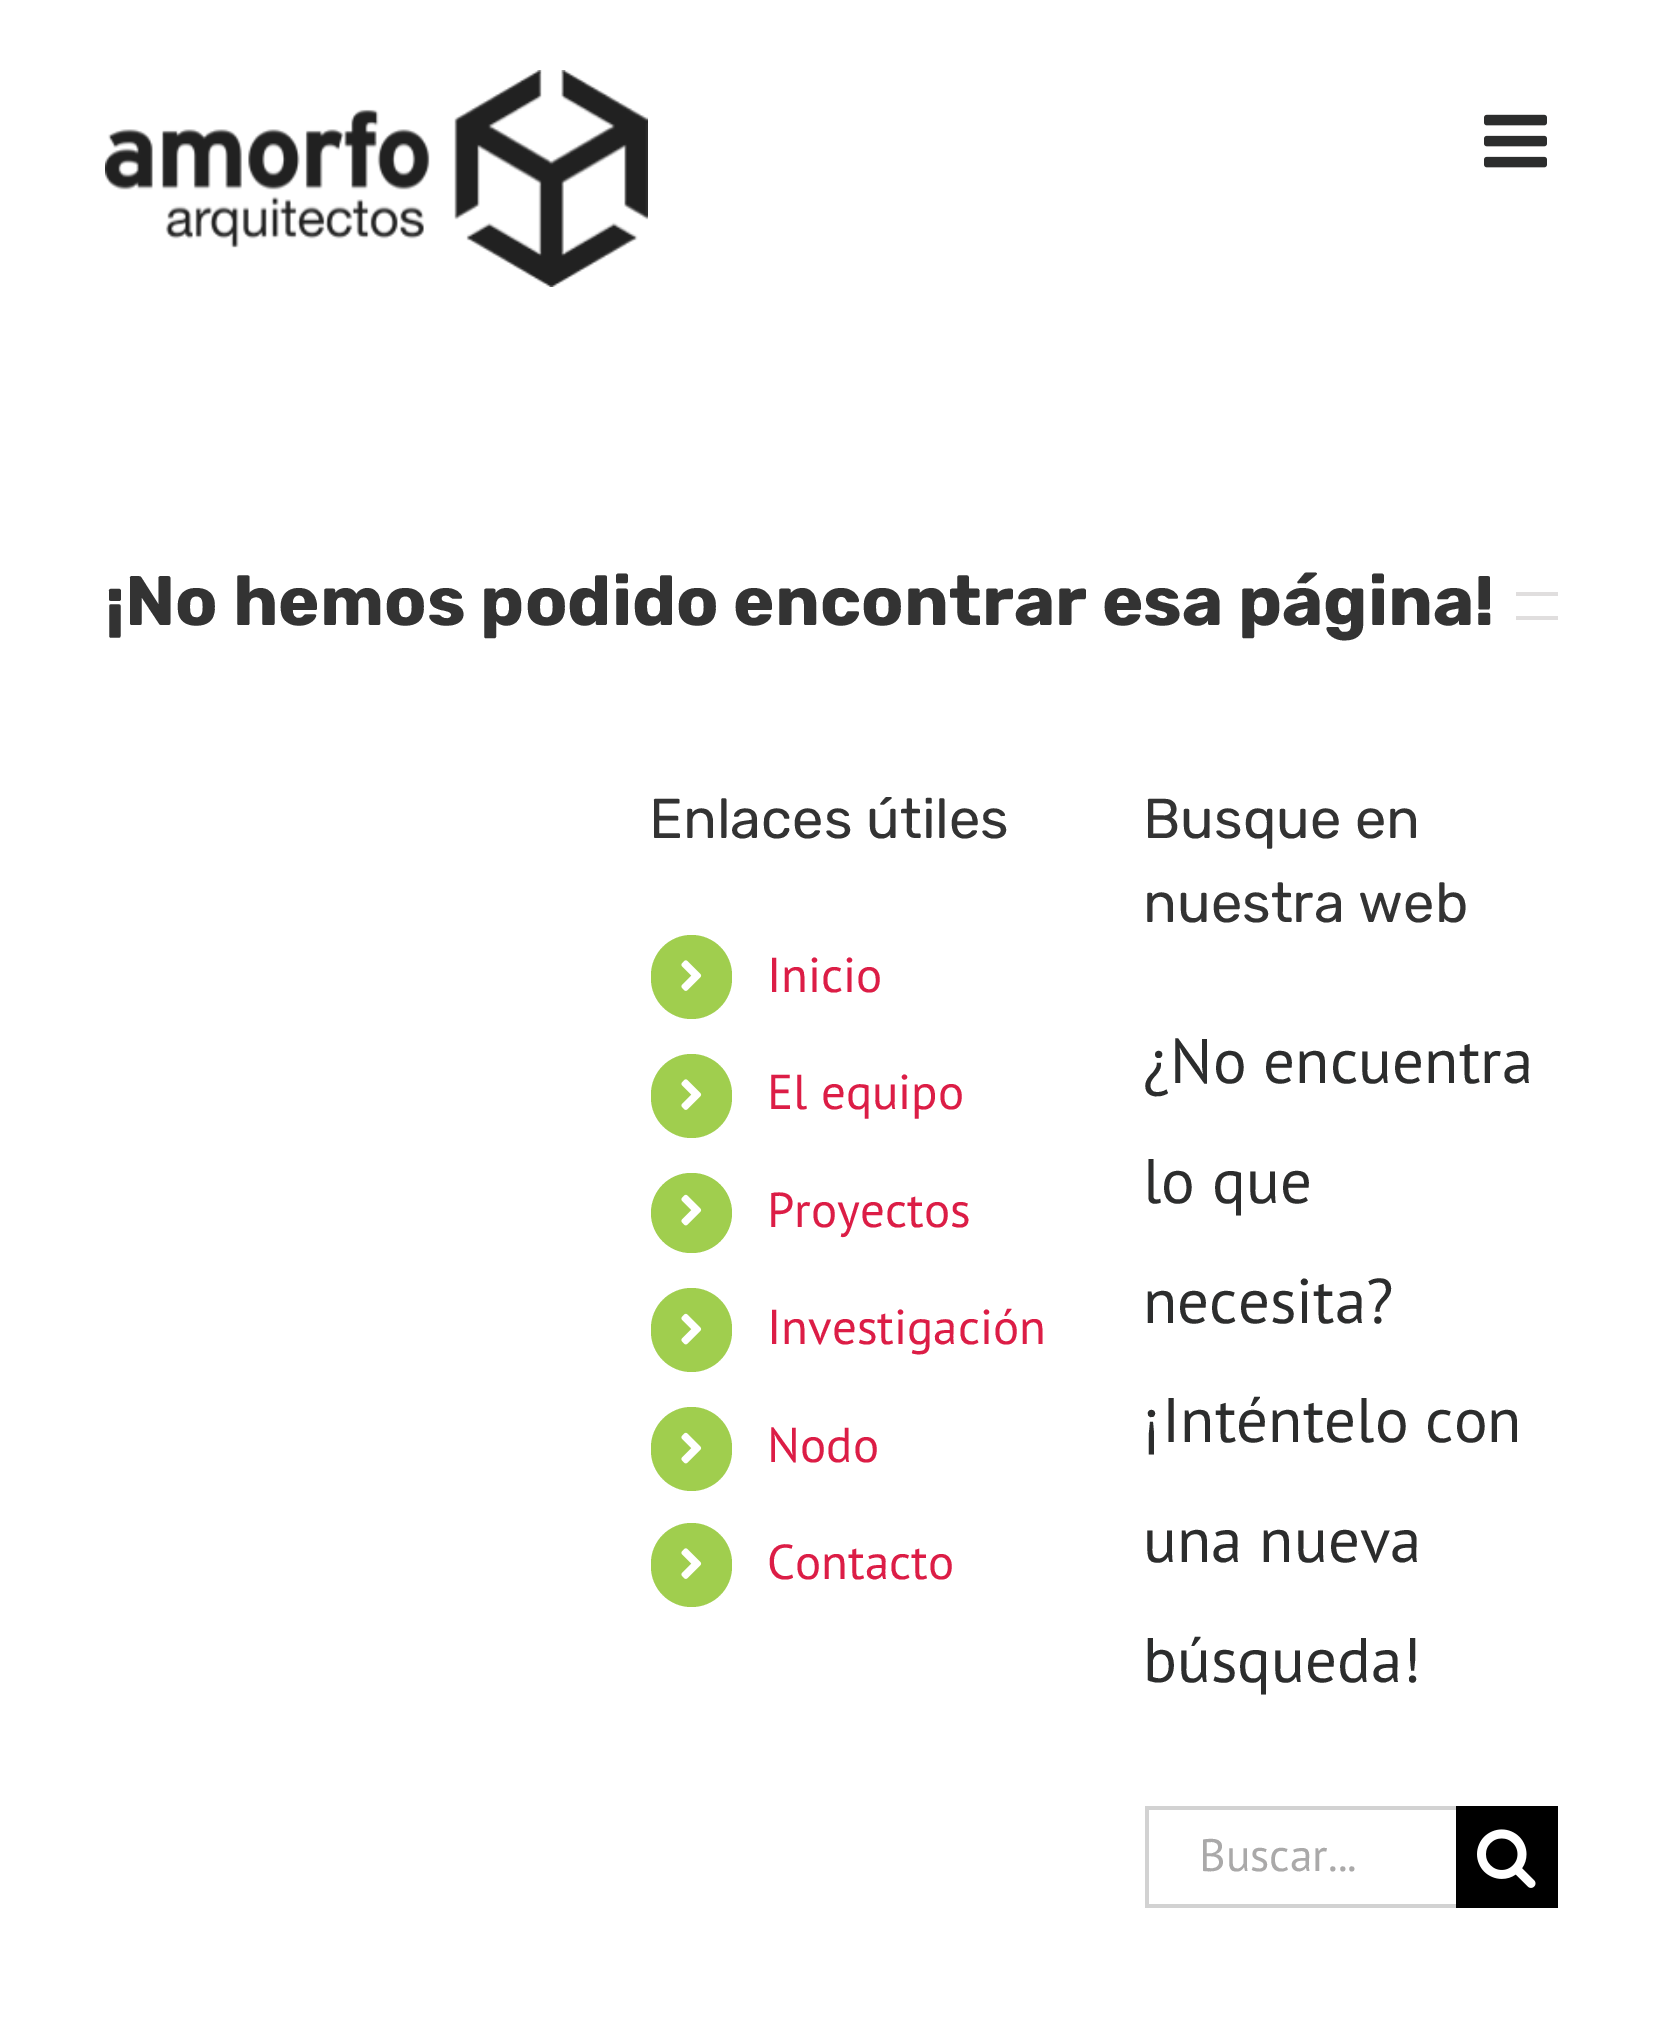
%!PS
<< /PageSize [1660 2032] >> setpagedevice
/rgb { 3 { 255 div 3 1 roll } repeat setrgbcolor } def
/font { [ exch dup neg 0 0 3 -1 roll 0 0 ] selectfont } def
/roundrect { 5 dict begin { /r /h /w /y /x } { exch def } forall
  x r add y moveto x w add y 2 copy h add r arct x w add y h add x 1 index r arct
  x y h add x y r arct x y 2 copy exch w add exch r arct closepath end } def
/picture { 5 dict begin { /h /w /y /x /name } { exch def } forall
  gsave x y translate w h scale
  w h 8 [w 0 0 h 0 0] name (r) file false 3 colorimage grestore end } def
0 2032 translate 1 -1 scale
4 setmiterlimit
255 255 255 rgb
0 0 1660 2032 rectfill
(img/1.rgb) 105 70 543 217 picture
(img/2.rgb) 1484 114 63 54 picture
224 222 222 rgb
1516 592 42 4 rectfill
1516 616 42 4 rectfill
160 206 78 rgb
651 935 81 84 40.5 roundrect fill
(img/3.rgb) 681 960 21 31 picture
651 1054 81 84 40.5 roundrect fill
(img/3.rgb) 681 1079 21 31 picture
651 1173 81 80 40 roundrect fill
(img/4.rgb) 681 1194 21 32 picture
651 1288 81 84 40.5 roundrect fill
(img/4.rgb) 681 1313 21 32 picture
651 1407 81 84 40.5 roundrect fill
(img/4.rgb) 681 1432 21 32 picture
651 1523 81 84 40.5 roundrect fill
(img/3.rgb) 681 1548 21 31 picture
[
  [1145 1806 311 4 210 210 210]
  [1145 1904 311 4 210 210 210]
  [1145 1806 4 102 210 210 210]
  [1456 1806 102 102 0 0 0]
] { aload pop rgb rectfill } forall
(img/5.rgb) 1477 1829 59 59 picture
/Rubik-Bold 70 font
51 51 51 rgb
105 625 moveto (¡No hemos podido encontrar esa página!) show
/Rubik-Regular 56 font
649 838 moveto (Enlaces útiles) show
/PTSans-Regular 49 font
220 29 70 rgb
[
  [(Inicio) 767 992]
  [(El equipo) 767 1109]
  [(Proyectos) 767 1227]
  [(Investigación) 767 1344]
  [(Nodo) 767 1462]
  [(Contacto) 767 1579]
] { aload pop moveto show } forall
/Rubik-Regular 56 font
51 51 51 rgb
1143 838 moveto (Busque en) show
1143 922 moveto (nuestra web) show
/PTSans-Regular 63 font
44 45 45 rgb
[
  [(¿No encuentra) 1143 1083]
  [(lo que) 1143 1203]
  [(necesita?) 1143 1323]
  [(¡Inténtelo con) 1143 1442]
  [(una nueva) 1143 1562]
  [(búsqueda!) 1143 1682]
] { aload pop moveto show } forall
/PTSans-Regular 45.5 font
170 169 169 rgb
1199 1871 moveto (Buscar...) show
showpage
